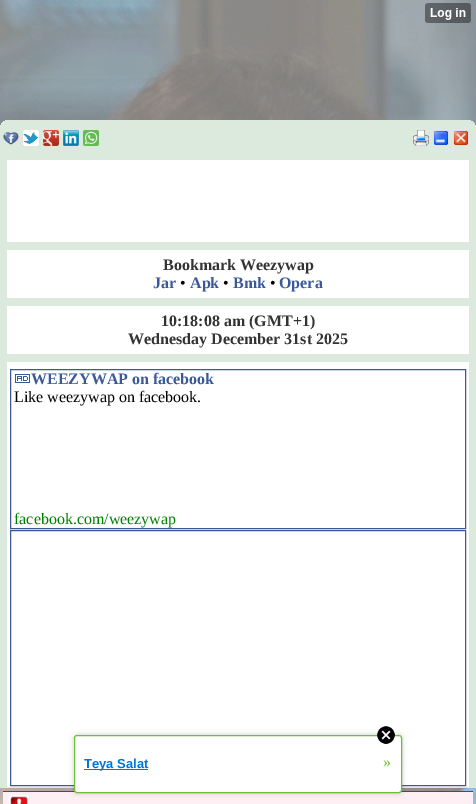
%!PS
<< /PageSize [476 804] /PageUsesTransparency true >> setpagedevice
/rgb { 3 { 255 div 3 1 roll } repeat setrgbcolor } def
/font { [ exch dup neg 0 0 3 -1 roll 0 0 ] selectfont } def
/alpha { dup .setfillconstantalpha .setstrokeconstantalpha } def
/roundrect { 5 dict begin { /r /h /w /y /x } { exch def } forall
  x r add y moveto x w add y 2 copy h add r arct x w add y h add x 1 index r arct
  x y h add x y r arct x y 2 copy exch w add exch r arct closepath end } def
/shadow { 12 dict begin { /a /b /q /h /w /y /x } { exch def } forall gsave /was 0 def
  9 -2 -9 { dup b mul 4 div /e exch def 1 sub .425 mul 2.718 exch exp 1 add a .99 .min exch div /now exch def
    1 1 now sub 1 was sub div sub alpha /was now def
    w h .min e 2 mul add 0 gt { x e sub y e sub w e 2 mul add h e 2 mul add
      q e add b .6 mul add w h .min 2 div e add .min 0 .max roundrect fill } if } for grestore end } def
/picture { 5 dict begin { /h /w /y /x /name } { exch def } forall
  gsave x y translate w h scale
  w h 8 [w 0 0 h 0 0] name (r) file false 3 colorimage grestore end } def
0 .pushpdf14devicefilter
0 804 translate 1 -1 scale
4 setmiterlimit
255 255 255 rgb
0 0 476 804 rectfill
(img/1.rgb) 0 0 476 804 picture
(img/2.rgb) 0 0 476 804 picture
(img/3.rgb) 425 3 46 20 picture
[
  [5 120 466 1 219 234 220]
  [3 121 470 1 219 234 220]
  [2 122 472 1 219 234 220]
  [1 123 474 2 219 234 220]
  [0 125 476 663 219 234 220]
] { aload pop rgb rectfill } forall
(img/4.rgb) 3 132 16 13 picture
(img/5.rgb) 23 130 16 16 picture
(img/6.rgb) 43 130 16 16 picture
(img/7.rgb) 63 130 16 16 picture
(img/8.rgb) 83 130 16 16 picture
(img/9.rgb) 413 130 16 16 picture
(img/10.rgb) 433 130 16 16 picture
(img/11.rgb) 453 130 16 16 picture
[
  [7 160 462 82 255 255 255]
  [7 250 462 48 255 255 255]
  [7 306 462 48 255 255 255]
  [7 362 462 425 255 255 255]
] { aload pop rgb rectfill } forall
59 89 152 rgb
10.5 369.5 455 159 rectstroke
(img/12.rgb) 15 374 15 9 picture
10.5 530.5 455 255 rectstroke
253 239 244 rgb
3 792 470 12 rectfill
255 0 0 rgb
3 791 470 1 rectfill
(img/13.rgb) 9 795 20 9 picture
0 0 0 rgb
74 735 328 58 3 2.5 0.2 shadow
255 255 255 rgb
74.5 735.5 327 57 2.5 roundrect gsave fill grestore
107 193 53 rgb
stroke
(img/14.rgb) 377 726 18 18 picture
2 116 212 rgb
84 769 64 1 rectfill
/LiberationSerif-Bold 16 font
51 51 51 rgb
163 270 moveto (Bookmark Weezywap) show
59 89 152 rgb
153 288 moveto (Jar) show
/LiberationSerif-Regular 16 font
0 0 0 rgb
180 288 moveto (•) show
/LiberationSerif-Bold 16 font
59 89 152 rgb
190 288 moveto (Apk) show
/LiberationSerif-Regular 16 font
0 0 0 rgb
223 288 moveto (•) show
/LiberationSerif-Bold 16 font
59 89 152 rgb
233 288 moveto (Bmk) show
/LiberationSerif-Regular 16 font
0 0 0 rgb
270 288 moveto (•) show
/LiberationSerif-Bold 16 font
59 89 152 rgb
279 288 moveto (Opera) show
51 51 51 rgb
161 326 moveto (10:18:08 am \(GMT+1\)) show
128 344 moveto (Wednesday December 31st 2025) show
59 89 152 rgb
31 384 moveto (WEEZYWAP on facebook) show
/LiberationSerif-Regular 16 font
0 0 0 rgb
14 402 moveto (Like weezywap on facebook.) show
0 128 0 rgb
14 524 moveto (facebook.com/weezywap) show
/LiberationSans-Bold 13 font
2 116 212 rgb
84 768 moveto (Teya Salat) show
/LiberationSerif-Regular 16 font
107 193 53 rgb
383 767 moveto (») show
.poppdf14devicefilter showpage
